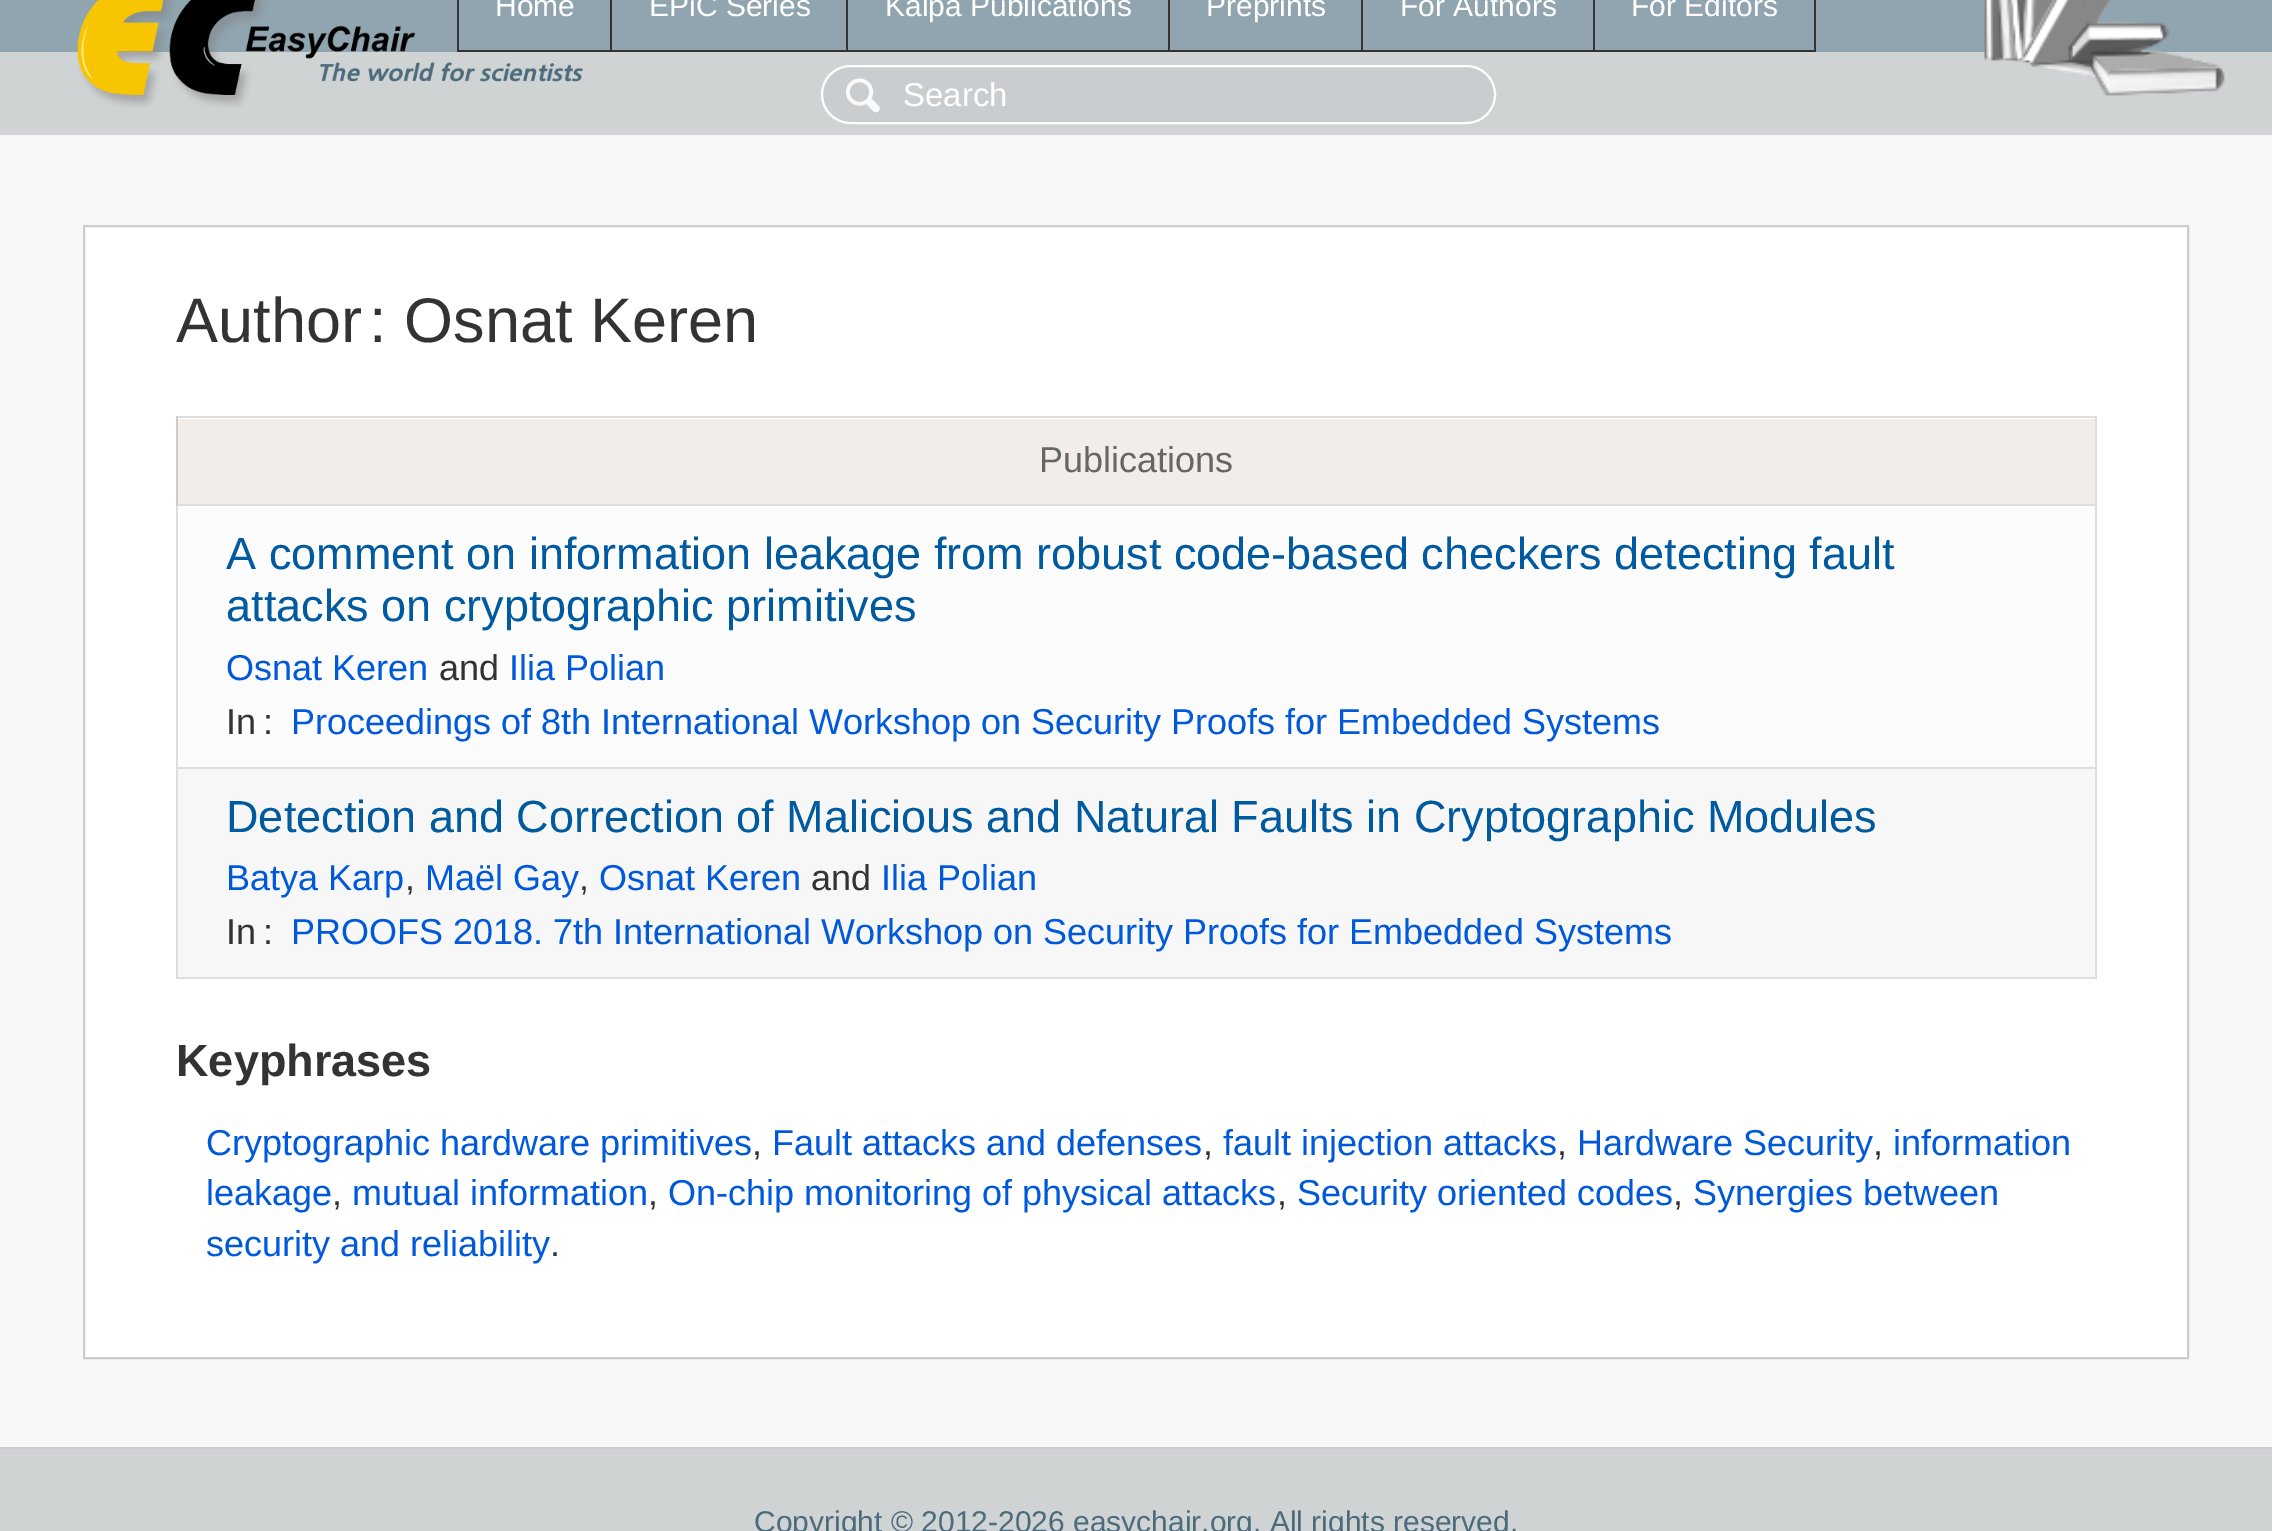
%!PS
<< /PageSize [2272 1531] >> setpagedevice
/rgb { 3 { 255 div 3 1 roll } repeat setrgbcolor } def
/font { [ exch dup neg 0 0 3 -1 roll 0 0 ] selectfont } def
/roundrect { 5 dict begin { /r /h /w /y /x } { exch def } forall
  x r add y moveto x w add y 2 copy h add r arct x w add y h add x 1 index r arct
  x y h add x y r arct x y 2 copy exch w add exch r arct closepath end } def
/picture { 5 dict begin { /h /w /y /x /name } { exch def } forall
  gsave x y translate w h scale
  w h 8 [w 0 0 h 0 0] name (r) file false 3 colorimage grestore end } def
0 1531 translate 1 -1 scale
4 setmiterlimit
144 165 176 rgb
0 0 2272 1531 rectfill
208 211 212 rgb
0 54 2270 79 rectfill
0 52 2272 2 rectfill
(img/1.rgb) 77 0 506 108 picture
[
  [1814 0 2 52 51 51 51]
  [1593 50 223 2 51 51 51]
  [1593 0 2 52 51 51 51]
  [1361 50 234 2 51 51 51]
  [1361 0 2 52 51 51 51]
  [1168 50 196 2 51 51 51]
  [1168 0 2 52 51 51 51]
  [846 50 324 2 51 51 51]
  [846 0 2 52 51 51 51]
  [610 50 238 2 51 51 51]
  [610 0 2 52 51 51 51]
  [457 50 155 2 51 51 51]
  [457 0 2 52 51 51 51]
] { aload pop rgb rectfill } forall
(img/2.rgb) 1984 0 241 96 picture
208 211 212 rgb
2270 52 2 83 rectfill
0 133 2272 2 rectfill
201 205 208 rgb
821 65 675 59 29.5 roundrect fill
(img/3.rgb) 846 78 34 35 picture
255 255 255 rgb
2 setlinewidth
822 66 673 57 28.5 roundrect stroke
248 248 248 rgb
0 135 2272 1312 rectfill
255 255 255 rgb
84 226 moveto 2188 226 lineto 2188 1358 lineto 84 1358 lineto closepath gsave fill grestore
204 204 204 rgb
stroke
[
  [176 416 1921 2 222 222 222]
  [2095 416 2 563 222 222 222]
  [176 977 1921 2 222 222 222]
  [176 506 2 473 222 222 222]
  [178 419 1917 85 242 237 233]
  [176 504 1921 2 222 222 222]
  [176 416 2 90 204 204 204]
  [178 506 1917 261 252 252 252]
  [176 767 1921 2 222 222 222]
  [178 769 1917 208 247 247 247]
  [0 1449 2272 82 208 211 212]
  [0 1447 2272 2 204 204 204]
] { aload pop rgb rectfill } forall
/LiberationSans-Regular 30 font
255 255 255 rgb
[
  [(Home) 495 16]
  [(EPiC Series) 649 16]
  [(Kalpa Publications) 885 16]
  [(Preprints) 1206 16]
  [(For Authors) 1400 16]
  [(For Editors) 1631 16]
] { aload pop moveto show } forall
/LiberationSans-Regular 33 font
903 106 moveto (Search) show
/LiberationSans-Regular 63 font
51 51 51 rgb
[
  [(Author) 176 342]
  [(:) 369 342]
  [(Osnat Keren) 404 342]
] { aload pop moveto show } forall
/LiberationSans-Regular 36 font
102 102 102 rgb
1039 472 moveto (Publications) show
/LiberationSans-Regular 45 font
0 90 159 rgb
226 569 moveto (A comment on information leakage from robust code-based checkers detecting fault) show
226 621 moveto (attacks on cryptographic primitives) show
/LiberationSans-Regular 36 font
0 89 219 rgb
226 680 moveto (Osnat Keren) show
51 51 51 rgb
439 680 moveto (and) show
0 89 219 rgb
509 680 moveto (Ilia Polian) show
51 51 51 rgb
226 734 moveto (In) show
263 734 moveto (:) show
0 89 219 rgb
291 734 moveto (Proceedings of 8th International Workshop on Security Proofs for Embedded Systems) show
/LiberationSans-Regular 45 font
0 90 159 rgb
226 832 moveto (Detection and Correction of Malicious and Natural Faults in Cryptographic Modules) show
/LiberationSans-Regular 36 font
0 89 219 rgb
226 890 moveto (Batya Karp) show
51 51 51 rgb
405 890 moveto (,) show
0 89 219 rgb
425 890 moveto (Maël Gay) show
51 51 51 rgb
579 890 moveto (,) show
0 89 219 rgb
599 890 moveto (Osnat Keren) show
51 51 51 rgb
811 890 moveto (and) show
0 89 219 rgb
881 890 moveto (Ilia Polian) show
51 51 51 rgb
226 944 moveto (In) show
263 944 moveto (:) show
0 89 219 rgb
291 944 moveto (PROOFS 2018. 7th International Workshop on Security Proofs for Embedded Systems) show
/LiberationSans-Bold 45 font
51 51 51 rgb
176 1076 moveto (Keyphrases) show
/LiberationSans-Regular 36 font
0 89 219 rgb
206 1155 moveto (Cryptographic hardware primitives) show
51 51 51 rgb
752 1155 moveto (,) show
0 89 219 rgb
772 1155 moveto (Fault attacks and defenses) show
51 51 51 rgb
1203 1155 moveto (,) show
0 89 219 rgb
1223 1155 moveto (fault injection attacks) show
51 51 51 rgb
1557 1155 moveto (,) show
0 89 219 rgb
1577 1155 moveto (Hardware Security) show
51 51 51 rgb
1873 1155 moveto (,) show
0 89 219 rgb
1893 1155 moveto (information) show
206 1205 moveto (leakage) show
51 51 51 rgb
332 1205 moveto (,) show
0 89 219 rgb
352 1205 moveto (mutual information) show
51 51 51 rgb
648 1205 moveto (,) show
0 89 219 rgb
668 1205 moveto (On-chip monitoring of physical attacks) show
51 51 51 rgb
1277 1205 moveto (,) show
0 89 219 rgb
1297 1205 moveto (Security oriented codes) show
51 51 51 rgb
1673 1205 moveto (,) show
0 89 219 rgb
1693 1205 moveto (Synergies between) show
206 1256 moveto (security and reliability) show
51 51 51 rgb
550 1256 moveto (.) show
/LiberationSans-Regular 30 font
76 108 124 rgb
754 1532 moveto (Copyright © 2012-2026 easychair.org. All rights reserved.) show
showpage
